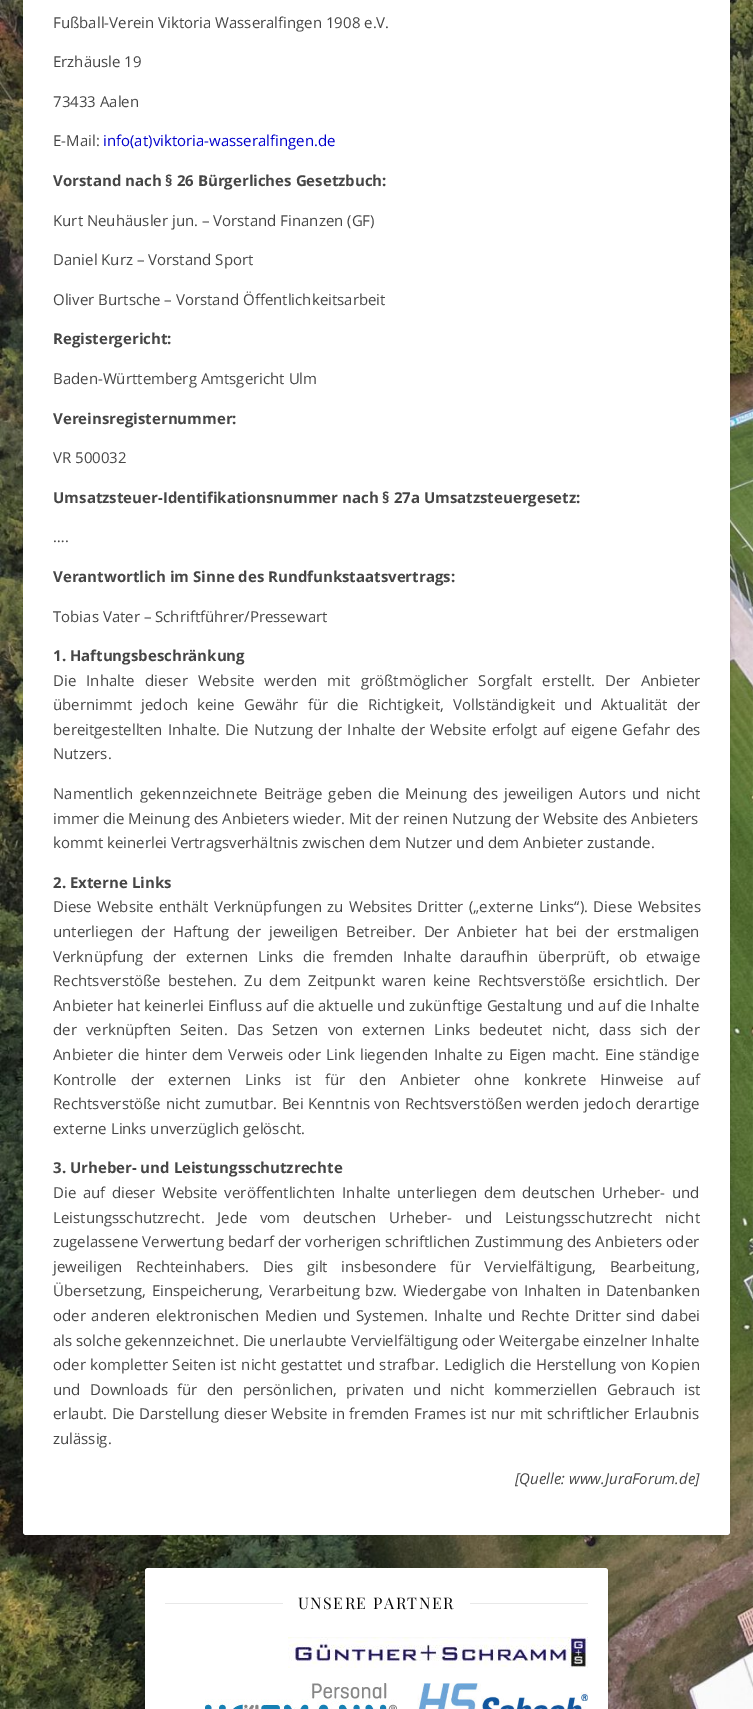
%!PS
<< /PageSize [753 1709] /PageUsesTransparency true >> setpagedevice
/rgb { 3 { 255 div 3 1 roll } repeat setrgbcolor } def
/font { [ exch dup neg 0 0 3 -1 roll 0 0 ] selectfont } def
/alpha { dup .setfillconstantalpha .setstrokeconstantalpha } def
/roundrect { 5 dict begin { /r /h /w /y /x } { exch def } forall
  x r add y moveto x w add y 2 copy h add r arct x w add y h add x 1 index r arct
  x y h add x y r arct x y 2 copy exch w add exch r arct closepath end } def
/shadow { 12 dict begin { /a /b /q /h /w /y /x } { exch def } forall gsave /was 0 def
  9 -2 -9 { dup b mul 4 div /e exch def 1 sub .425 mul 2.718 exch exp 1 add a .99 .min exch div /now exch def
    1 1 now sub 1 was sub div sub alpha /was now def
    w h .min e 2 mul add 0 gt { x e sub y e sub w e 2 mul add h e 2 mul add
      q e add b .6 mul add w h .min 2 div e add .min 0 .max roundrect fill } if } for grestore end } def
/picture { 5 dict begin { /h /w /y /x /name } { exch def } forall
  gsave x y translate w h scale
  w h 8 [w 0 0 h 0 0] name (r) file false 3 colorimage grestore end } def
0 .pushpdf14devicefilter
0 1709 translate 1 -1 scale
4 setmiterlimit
255 255 255 rgb
0 0 753 1709 rectfill
(img/1.rgb) 0 0 753 1709 picture
0 0 0 rgb
24 -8 707 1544 3 1.5 0.1 shadow
255 255 255 rgb
23 -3 707 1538 3 roundrect fill
0 0 0 rgb
146 1569 463 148 3 1.5 0.1 shadow
255 255 255 rgb
145 1568 463 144 3 roundrect fill
232 232 232 rgb
165 1603 118 1 rectfill
470 1603 118 1 rectfill
(img/2.rgb) 288 1637 300 31 picture
(img/3.rgb) 205 1683 192 26 picture
(img/4.rgb) 417 1683 171 26 picture
/OpenSans-Regular 15 font
70 70 70 rgb
[
  [(Fußball-Verein Viktoria Wasseralfingen 1908 e.V.) 53 28]
  [(Erzhäusle 19) 53 67]
  [(73433 Aalen) 53 107]
  [(E-Mail:) 53 146]
] { aload pop moveto show } forall
0 0 204 rgb
103 146 moveto (info\(at\)viktoria-wasseralfingen.de) show
/OpenSans-Bold 15 font
70 70 70 rgb
53 186 moveto (Vorstand nach § 26 Bürgerliches Gesetzbuch:) show
/OpenSans-Regular 15 font
[
  [(Kurt Neuhäusler jun. – Vorstand Finanzen \(GF\)) 53 226]
  [(Daniel Kurz – Vorstand Sport) 53 265]
  [(Oliver Burtsche – Vorstand Öffentlichkeitsarbeit) 53 305]
] { aload pop moveto show } forall
/OpenSans-Bold 15 font
53 344 moveto (Registergericht:) show
/OpenSans-Regular 15 font
53 384 moveto (Baden-Württemberg Amtsgericht Ulm) show
/OpenSans-Bold 15 font
53 424 moveto (Vereinsregisternummer:) show
/OpenSans-Regular 15 font
53 463 moveto (VR 500032) show
/OpenSans-Bold 15 font
53 503 moveto (Umsatzsteuer-Identifikationsnummer nach § 27a Umsatzsteuergesetz:) show
/OpenSans-Regular 15 font
53 542 moveto (….) show
/OpenSans-Bold 15 font
53 582 moveto (Verantwortlich im Sinne des Rundfunkstaatsvertrags:) show
/OpenSans-Regular 15 font
53 622 moveto (Tobias Vater – Schriftführer/Pressewart) show
/OpenSans-Bold 15 font
53 661 moveto (1. Haftungsbeschränkung) show
/OpenSans-Regular 15 font
53 686 moveto 6.25 0 32 (Die Inhalte dieser Website werden mit größtmöglicher Sorgfalt erstellt. Der Anbieter) widthshow
53 710 moveto 5.25 0 32 (übernimmt jedoch keine Gewähr für die Richtigkeit, Vollständigkeit und Aktualität der) widthshow
53 735 moveto 1.4 0 32 (bereitgestellten Inhalte. Die Nutzung der Inhalte der Website erfolgt auf eigene Gefahr des) widthshow
53 759 moveto (Nutzers.) show
53 799 moveto 2.25 0 32 (Namentlich gekennzeichnete Beiträge geben die Meinung des jeweiligen Autors und nicht) widthshow
53 824 moveto (immer die Meinung des Anbieters wieder. Mit der reinen Nutzung der Website des Anbieters) show
53 848 moveto (kommt keinerlei Vertragsverhältnis zwischen dem Nutzer und dem Anbieter zustande.) show
/OpenSans-Bold 15 font
53 888 moveto (2. Externe Links) show
/OpenSans-Regular 15 font
53 912 moveto 1.5 0 32 (Diese Website enthält Verknüpfungen zu Websites Dritter \(„externe Links“\). Diese Websites) widthshow
53 937 moveto 4.1 0 32 (unterliegen der Haftung der jeweiligen Betreiber. Der Anbieter hat bei der erstmaligen) widthshow
53 962 moveto 5.25 0 32 (Verknüpfung der externen Links die fremden Inhalte daraufhin überprüft, ob etwaige) widthshow
53 986 moveto 3.25 0 32 (Rechtsverstöße bestehen. Zu dem Zeitpunkt waren keine Rechtsverstöße ersichtlich. Der) widthshow
53 1011 moveto 0.25 0 32 (Anbieter hat keinerlei Einfluss auf die aktuelle und zukünftige Gestaltung und auf die Inhalte) widthshow
53 1035 moveto 5.1 0 32 (der verknüpften Seiten. Das Setzen von externen Links bedeutet nicht, dass sich der) widthshow
53 1060 moveto 1.25 0 32 (Anbieter die hinter dem Verweis oder Link liegenden Inhalte zu Eigen macht. Eine ständige) widthshow
53 1085 moveto 10 0 32 (Kontrolle der externen Links ist für den Anbieter ohne konkrete Hinweise auf) widthshow
53 1109 moveto 0.75 0 32 (Rechtsverstöße nicht zumutbar. Bei Kenntnis von Rechtsverstößen werden jedoch derartige) widthshow
53 1134 moveto (externe Links unverzüglich gelöscht.) show
/OpenSans-Bold 15 font
53 1173 moveto (3. Urheber- und Leistungsschutzrechte) show
/OpenSans-Regular 15 font
53 1198 moveto 2.75 0 32 (Die auf dieser Website veröffentlichten Inhalte unterliegen dem deutschen Urheber- und) widthshow
53 1223 moveto 8.75 0 32 (Leistungsschutzrecht. Jede vom deutschen Urheber- und Leistungsschutzrecht nicht) widthshow
53 1247 moveto (zugelassene Verwertung bedarf der vorherigen schriftlichen Zustimmung des Anbieters oder) show
53 1272 moveto 9.75 0 32 (jeweiligen Rechteinhabers. Dies gilt insbesondere für Vervielfältigung, Bearbeitung,) widthshow
53 1296 moveto 1.75 0 32 (Übersetzung, Einspeicherung, Verarbeitung bzw. Wiedergabe von Inhalten in Datenbanken) widthshow
53 1321 moveto 1.75 0 32 (oder anderen elektronischen Medien und Systemen. Inhalte und Rechte Dritter sind dabei) widthshow
53 1346 moveto (als solche gekennzeichnet. Die unerlaubte Vervielfältigung oder Weitergabe einzelner Inhalte) show
53 1370 moveto 0.75 0 32 (oder kompletter Seiten ist nicht gestattet und strafbar. Lediglich die Herstellung von Kopien) widthshow
53 1395 moveto 5.25 0 32 (und Downloads für den persönlichen, privaten und nicht kommerziellen Gebrauch ist) widthshow
53 1419 moveto 0.5 0 32 (erlaubt. Die Darstellung dieser Website in fremden Frames ist nur mit schriftlicher Erlaubnis) widthshow
53 1444 moveto (zulässig.) show
/OpenSans-Italic 15 font
515 1484 moveto ([Quelle: www.JuraForum.de]) show
/PlayfairDisplay-Regular 16 font
3 3 3 rgb
298 1609 moveto 1.5 0 (UNSERE PARTNER) ashow
.poppdf14devicefilter showpage
